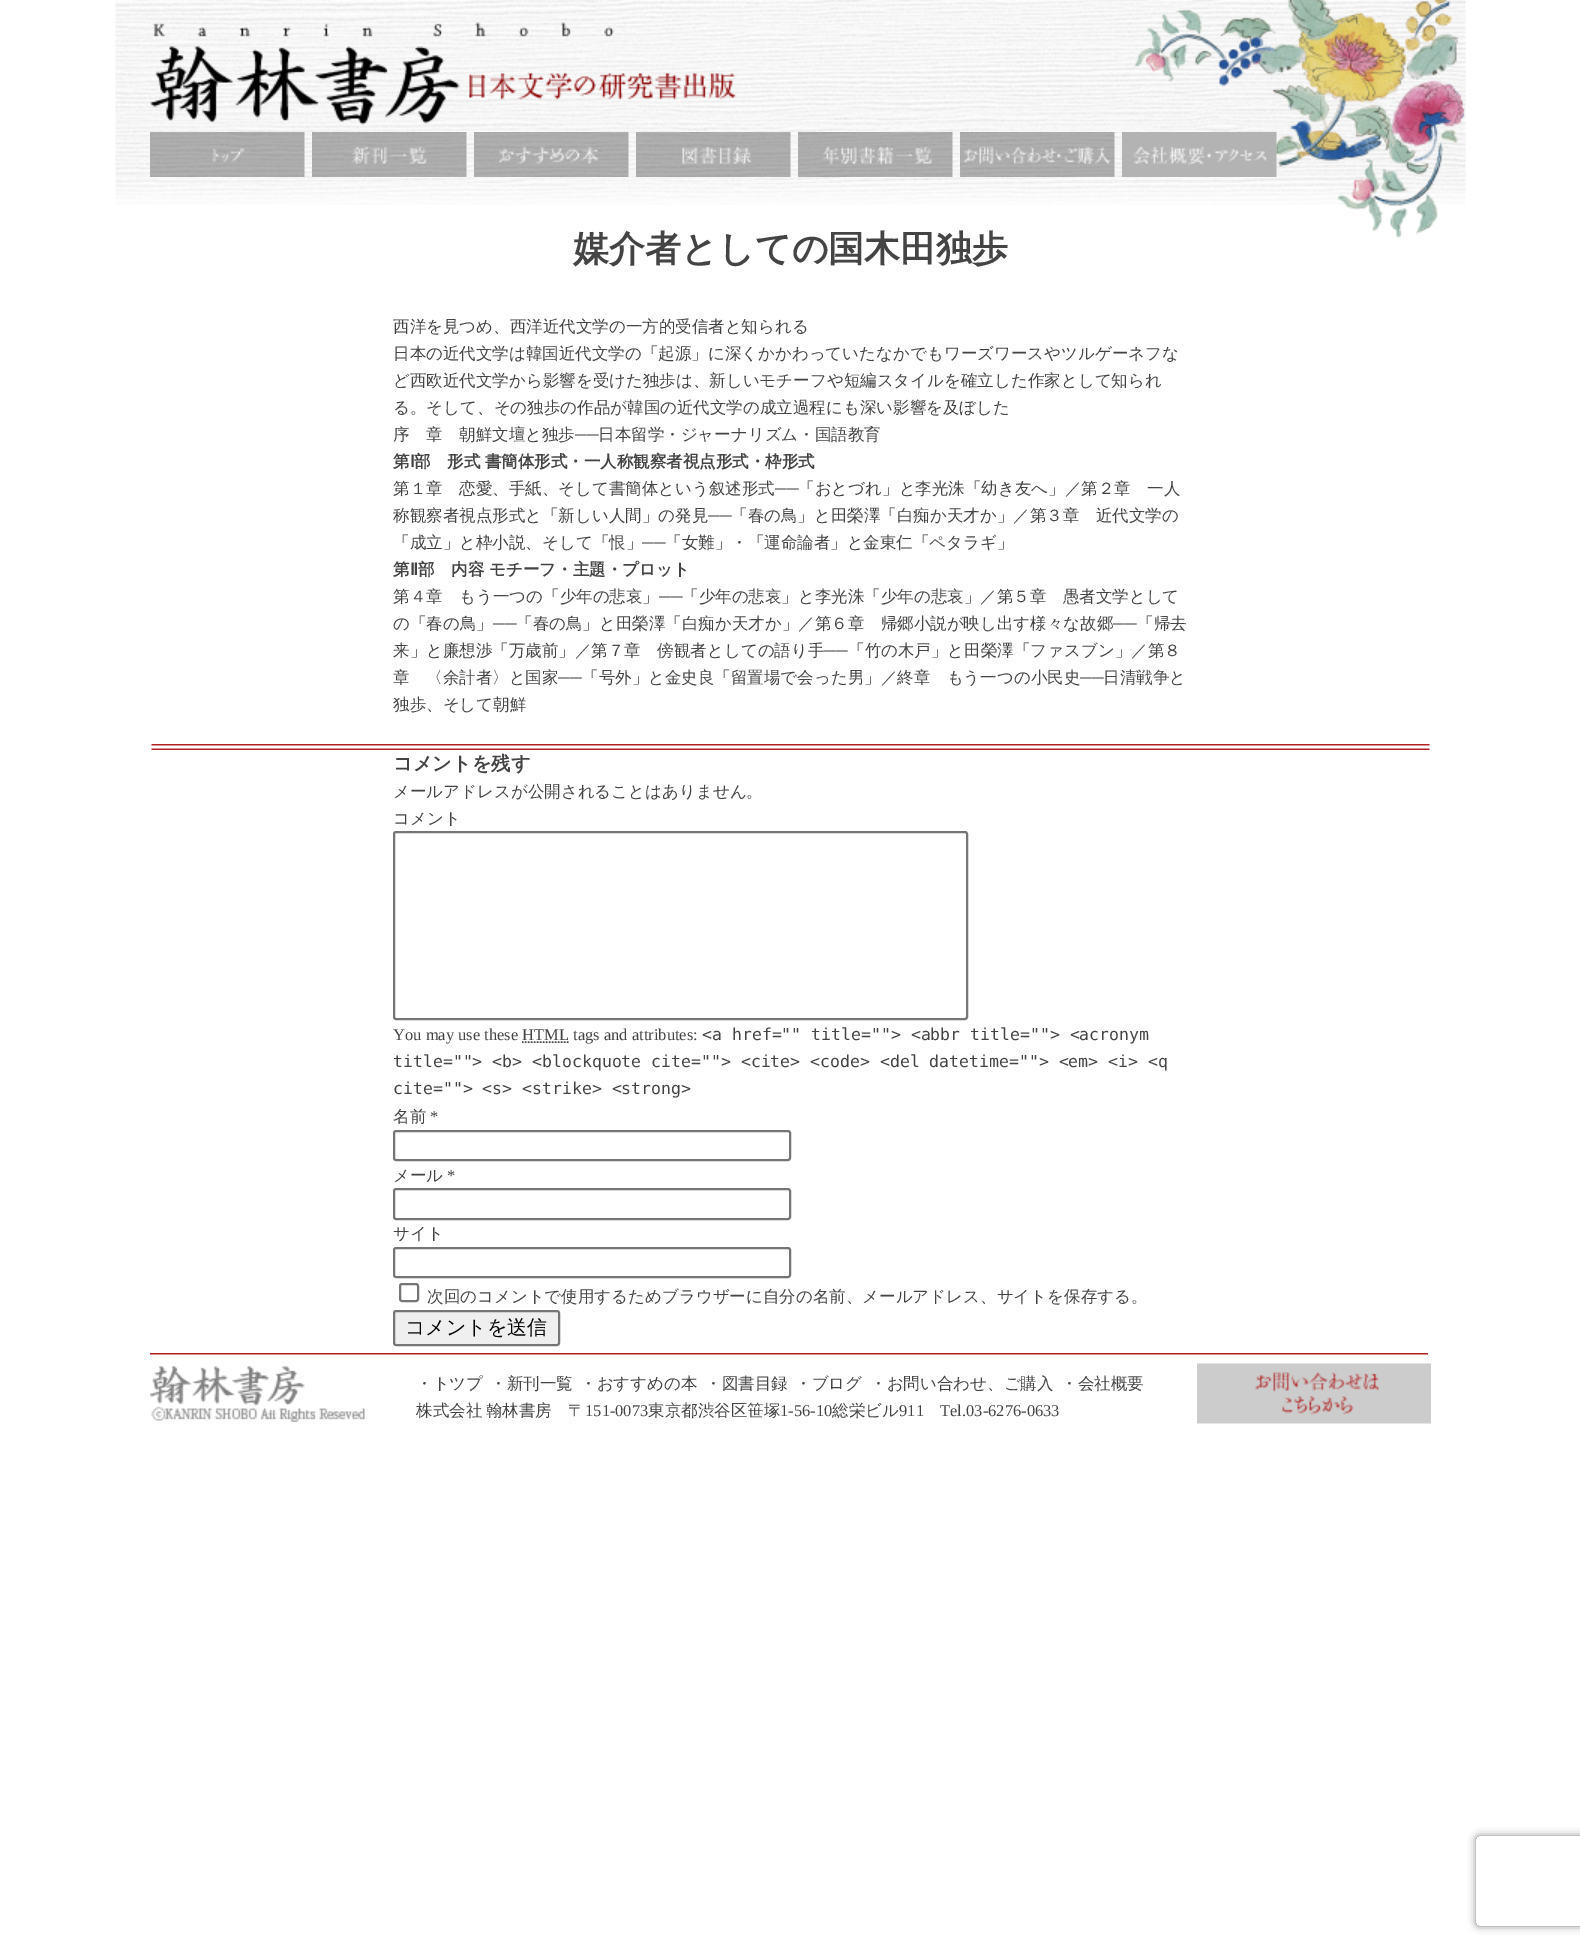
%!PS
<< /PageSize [1580 1947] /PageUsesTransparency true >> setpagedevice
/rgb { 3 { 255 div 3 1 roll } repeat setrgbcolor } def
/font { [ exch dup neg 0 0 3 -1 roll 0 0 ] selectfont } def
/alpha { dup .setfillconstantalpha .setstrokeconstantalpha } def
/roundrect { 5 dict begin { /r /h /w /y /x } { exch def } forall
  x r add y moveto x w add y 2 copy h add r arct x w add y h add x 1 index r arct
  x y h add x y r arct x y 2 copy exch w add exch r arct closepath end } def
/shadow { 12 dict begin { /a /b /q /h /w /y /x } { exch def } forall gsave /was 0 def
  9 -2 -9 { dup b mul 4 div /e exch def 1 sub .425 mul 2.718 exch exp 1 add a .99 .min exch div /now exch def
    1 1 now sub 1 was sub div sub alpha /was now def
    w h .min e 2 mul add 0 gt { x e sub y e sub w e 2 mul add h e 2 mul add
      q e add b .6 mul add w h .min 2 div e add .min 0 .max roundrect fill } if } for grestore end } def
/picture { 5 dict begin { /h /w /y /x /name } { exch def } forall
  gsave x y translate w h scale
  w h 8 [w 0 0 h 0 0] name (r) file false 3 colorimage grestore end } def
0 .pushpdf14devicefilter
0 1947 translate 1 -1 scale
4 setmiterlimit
255 255 255 rgb
0 0 1580 1947 rectfill
(img/1.rgb) 115 0 1351 205 picture
(img/2.rgb) 150 22 587 103 picture
(img/3.rgb) 1134 0 331 238 picture
(img/4.rgb) 150 132 155 45 picture
(img/5.rgb) 312 132 155 45 picture
(img/6.rgb) 474 132 155 45 picture
(img/7.rgb) 636 132 155 45 picture
(img/8.rgb) 798 132 155 45 picture
(img/9.rgb) 960 132 155 45 picture
(img/10.rgb) 1122 132 155 45 picture
(img/11.rgb) 151 744 1279 6 picture
118 118 118 rgb
2 setlinewidth
394 832 573 187 2 roundrect stroke
68 68 68 rgb
1.5 setlinewidth
[1.5 1.5] 0 setdash
522 1042 moveto 569 1042 lineto stroke
118 118 118 rgb
2 setlinewidth
[] 0 setdash
394 1131 396 29 2 roundrect stroke
394 1189 396 30 2 roundrect stroke
394 1248 396 29 2 roundrect stroke
400 1284 18 17 2 roundrect stroke
239 239 239 rgb
394 1311 165 34 2 roundrect gsave fill grestore
118 118 118 rgb
stroke
(img/12.rgb) 150 1353 1278 2 picture
(img/13.rgb) 150 1366 215 56 picture
(img/14.rgb) 1197 1363 234 61 picture
gsave
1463 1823 moveto 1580 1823 lineto 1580 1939 lineto 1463 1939 lineto closepath 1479 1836 moveto 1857 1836 lineto 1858.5 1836 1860 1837.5 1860 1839 curveto 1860 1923 lineto 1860 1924.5 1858.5 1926 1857 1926 curveto 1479 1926 lineto 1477.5 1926 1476 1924.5 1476 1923 curveto 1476 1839 lineto 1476 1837.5 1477.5 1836 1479 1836 curveto closepath eoclip newpath
128 128 128 rgb
1476 1836 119 90 3 4 1 shadow
grestore
/WenQuanYiZenHei-Bold 36 font
68 68 68 rgb
573 261 moveto (媒介者としての国木田独歩) show
/WenQuanYiZenHei-Medium 16.5 font
[
  [(西洋を見つめ、西洋近代文学の一方的受信者と知られる) 393 332]
  [(日本の近代文学は韓国近代文学の「起源」に深くかかわっていたなかでもワーズワースやツルゲーネフな) 393 359]
  [(ど西欧近代文学から影響を受けた独歩は、新しいモチーフや短編スタイルを確立した作家として知られ) 393 386]
  [(る。そして、その独歩の作品が韓国の近代文学の成立過程にも深い影響を及ぼした) 393 413]
  [(序　章　朝鮮文壇と独歩) 393 440]
] { aload pop moveto show } forall
/LiberationSerif-Regular 16.5 font
575 440 moveto (──) show
/WenQuanYiZenHei-Medium 16.5 font
598 440 moveto (日本留学・ジャーナリズム・国語教育) show
/WenQuanYiZenHei-Bold 16.5 font
393 467 moveto (第) show
/DejaVuSans-Bold 16.5 font
410 467 moveto (Ⅰ) show
/WenQuanYiZenHei-Bold 16.5 font
414 467 moveto (部　形式 書簡体形式・一人称観察者視点形式・枠形式) show
/WenQuanYiZenHei-Medium 16.5 font
393 494 moveto (第１章　恋愛、手紙、そして書簡体という叙述形式) show
/LiberationSerif-Regular 16.5 font
775 494 moveto (──) show
/WenQuanYiZenHei-Medium 16.5 font
798 494 moveto (「おとづれ」と李光洙「幼き友へ」／第２章　一人) show
393 521 moveto (称観察者視点形式と「新しい人間」の発見) show
/LiberationSerif-Regular 16.5 font
708 521 moveto (──) show
/WenQuanYiZenHei-Medium 16.5 font
731 521 moveto (「春の鳥」と田榮澤「白痴か天才か」／第３章　近代文学の) show
393 548 moveto (「成立」と枠小説、そして「恨」) show
/LiberationSerif-Regular 16.5 font
642 548 moveto (──) show
/WenQuanYiZenHei-Medium 16.5 font
665 548 moveto (「女難」・「運命論者」と金東仁「ペタラギ」) show
/WenQuanYiZenHei-Bold 16.5 font
393 575 moveto (第) show
/DejaVuSans-Bold 16.5 font
410 575 moveto (Ⅱ) show
/WenQuanYiZenHei-Bold 16.5 font
418 575 moveto (部　内容 モチーフ・主題・プロット) show
/WenQuanYiZenHei-Medium 16.5 font
393 602 moveto (第４章　もう一つの「少年の悲哀」) show
/LiberationSerif-Regular 16.5 font
659 602 moveto (──) show
/WenQuanYiZenHei-Medium 16.5 font
682 602 moveto (「少年の悲哀」と李光洙「少年の悲哀」／第５章　愚者文学として) show
393 629 moveto (の「春の鳥」) show
/LiberationSerif-Regular 16.5 font
493 629 moveto (──) show
/WenQuanYiZenHei-Medium 16.5 font
516 629 moveto (「春の鳥」と田榮澤「白痴か天才か」／第６章　帰郷小説が映し出す様々な故郷) show
/LiberationSerif-Regular 16.5 font
1113 629 moveto (──) show
/WenQuanYiZenHei-Medium 16.5 font
1137 629 moveto (「帰去) show
393 656 moveto (来」と廉想渉「万歳前」／第７章　傍観者としての語り手) show
/LiberationSerif-Regular 16.5 font
824 656 moveto (──) show
/WenQuanYiZenHei-Medium 16.5 font
848 656 moveto (「竹の木戸」と田榮澤「ファスブン」／第８) show
393 683 moveto (章　〈余計者〉と国家) show
/LiberationSerif-Regular 16.5 font
558 683 moveto (──) show
/WenQuanYiZenHei-Medium 16.5 font
582 683 moveto (「号外」と金史良「留置場で会った男」／終章　もう一つの小民史) show
/LiberationSerif-Regular 16.5 font
1080 683 moveto (──) show
/WenQuanYiZenHei-Medium 16.5 font
1103 683 moveto (日清戦争と) show
393 710 moveto (独歩、そして朝鮮) show
/WenQuanYiZenHei-Bold 19.25 font
393 770 moveto (コメントを残す) show
/WenQuanYiZenHei-Medium 16.5 font
393 797 moveto (メールアドレスが公開されることはありません。) show
393 824 moveto (コメント) show
/LiberationSerif-Regular 16.5 font
393 1040 moveto (You may use these HTML tags and attributes:) show
/DejaVuSansMono-Regular 16.5 font
[
  [(<a href="" title=""> <abbr title=""> <acronym) 702 1040]
  [(title=""> <b> <blockquote cite=""> <cite> <code> <del datetime=""> <em> <i> <q) 393 1067]
  [(cite=""> <s> <strike> <strong>) 393 1094]
] { aload pop moveto show } forall
/WenQuanYiZenHei-Medium 16.5 font
393 1122 moveto (名前) show
/LiberationSerif-Regular 16.5 font
430 1122 moveto (*) show
/WenQuanYiZenHei-Medium 16.5 font
393 1181 moveto (メール) show
/LiberationSerif-Regular 16.5 font
447 1181 moveto (*) show
/WenQuanYiZenHei-Medium 16.5 font
393 1239 moveto (サイト) show
427 1302 moveto (次回のコメントで使用するためブラウザーに自分の名前、メールアドレス、サイトを保存する。) show
/WenQuanYiZenHei-Medium 20 font
0 0 0 rgb
405 1334 moveto (コメントを送信) show
/WenQuanYiZenHei-Medium 16.5 font
68 68 68 rgb
[
  [(・トツプ) 416 1389]
  [(・新刊一覧) 490 1389]
  [(・おすすめの本) 580 1389]
  [(・図書目録) 705 1389]
  [(・ブログ) 795 1389]
  [(・お問い合わせ、ご購入) 870 1389]
  [(・会社概要) 1061 1389]
] { aload pop moveto show } forall
416 1416 moveto -1 0 32 (株式会社 翰林書房　〒) widthshow
/LiberationSerif-Regular 16.5 font
585 1416 moveto (151-0073) show
/WenQuanYiZenHei-Medium 16.5 font
648 1416 moveto (東京都渋谷区笹塚) show
/LiberationSerif-Regular 16.5 font
780 1416 moveto (1-56-10) show
/WenQuanYiZenHei-Medium 16.5 font
832 1416 moveto (総栄ビル) show
/LiberationSerif-Regular 16.5 font
899 1416 moveto (911) show
940 1416 moveto (Tel.03-6276-0633) show
.poppdf14devicefilter showpage
